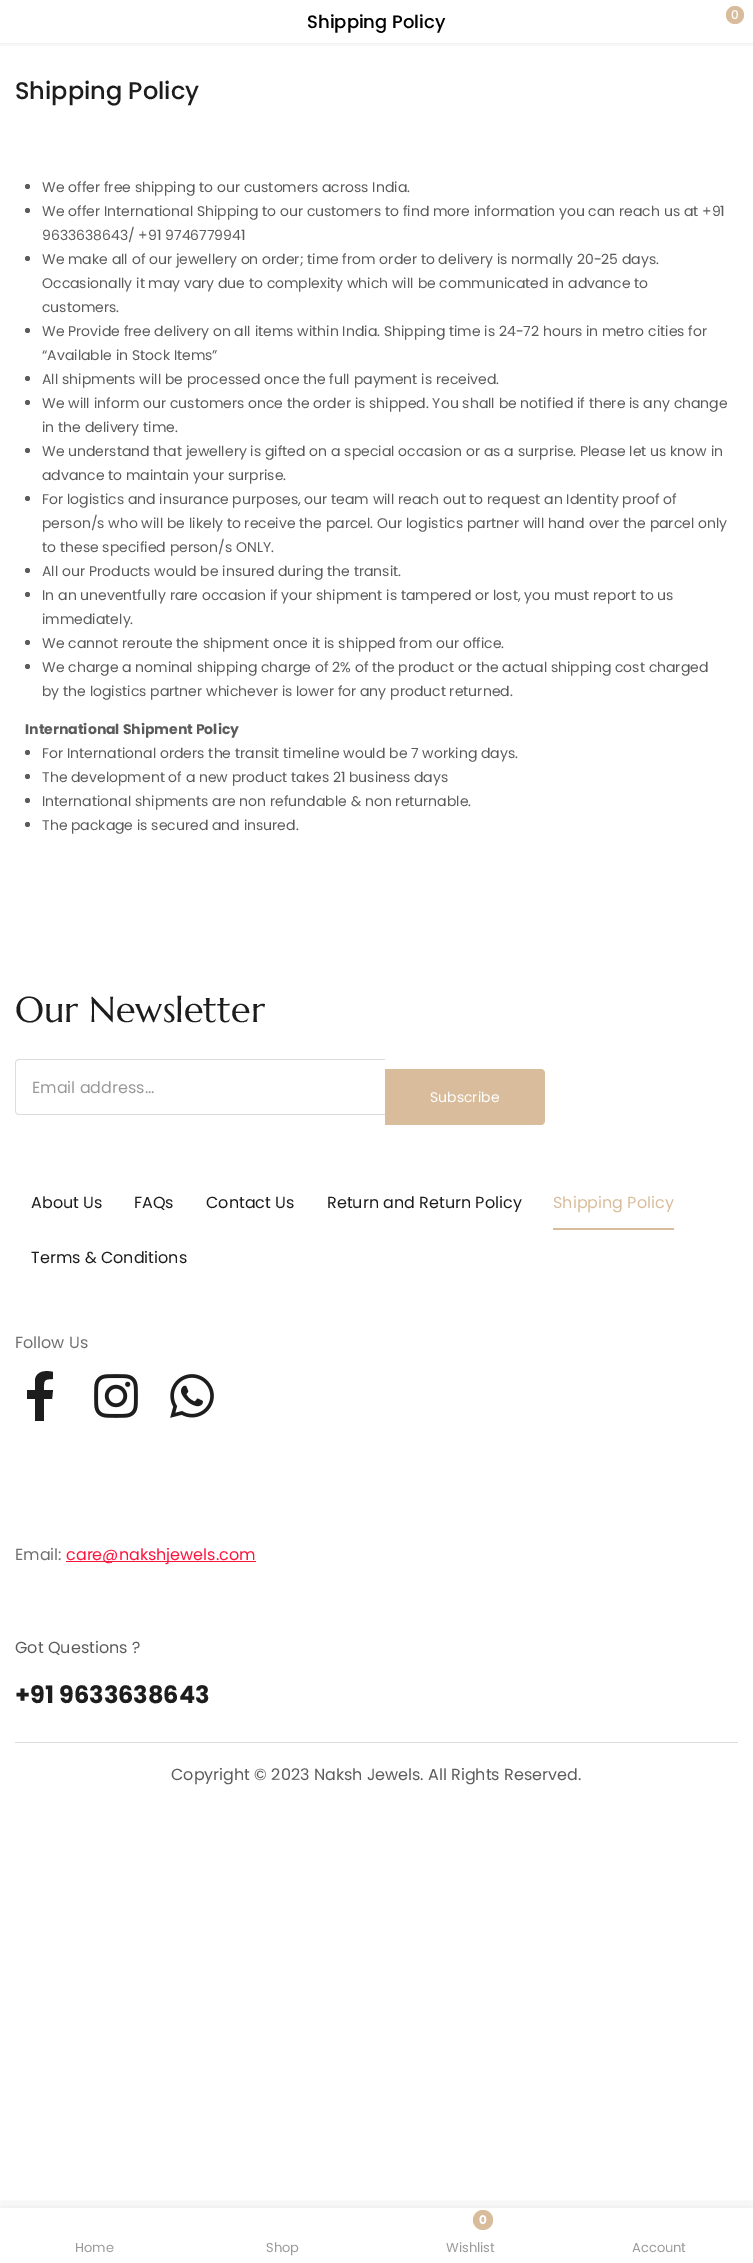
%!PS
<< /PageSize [753 2263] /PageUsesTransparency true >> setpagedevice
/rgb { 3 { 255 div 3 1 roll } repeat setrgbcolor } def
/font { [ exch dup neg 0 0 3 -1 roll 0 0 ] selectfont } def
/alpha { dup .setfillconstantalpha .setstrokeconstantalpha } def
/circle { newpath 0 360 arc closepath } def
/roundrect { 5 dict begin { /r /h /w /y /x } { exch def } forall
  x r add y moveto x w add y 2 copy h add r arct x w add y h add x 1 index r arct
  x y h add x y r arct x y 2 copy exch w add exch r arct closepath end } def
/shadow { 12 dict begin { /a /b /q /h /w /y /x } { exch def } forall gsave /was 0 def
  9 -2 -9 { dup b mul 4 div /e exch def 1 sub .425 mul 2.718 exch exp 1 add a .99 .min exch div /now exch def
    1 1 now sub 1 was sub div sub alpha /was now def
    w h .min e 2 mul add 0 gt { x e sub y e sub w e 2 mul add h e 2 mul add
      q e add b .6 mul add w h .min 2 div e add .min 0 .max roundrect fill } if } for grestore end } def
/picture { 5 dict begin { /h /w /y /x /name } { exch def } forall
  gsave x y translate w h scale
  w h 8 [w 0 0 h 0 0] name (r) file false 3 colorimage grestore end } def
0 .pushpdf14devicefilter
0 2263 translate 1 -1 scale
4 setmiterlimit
255 255 255 rgb
0 0 753 2263 rectfill
gsave
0 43 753 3 rectclip
0 0 0 rgb
0 0 753 43 0 4 0.1 shadow
grestore
217 188 155 rgb
735 15 9 circle fill
92 92 92 rgb
27.5 186.5 2.5 circle fill
27.5 210.5 2.5 circle fill
27.5 258.5 2.5 circle fill
27.5 330.5 2.5 circle fill
27.5 378.5 2.5 circle fill
27.5 402.5 2.5 circle fill
27.5 450.5 2.5 circle fill
27.5 498.5 2.5 circle fill
27.5 570.5 2.5 circle fill
27.5 594.5 2.5 circle fill
27.5 642.5 2.5 circle fill
27.5 666.5 2.5 circle fill
27.5 752.5 2.5 circle fill
27.5 776.5 2.5 circle fill
27.5 800.5 2.5 circle fill
27.5 824.5 2.5 circle fill
220 220 220 rgb
19 1059 moveto 385 1059 lineto 385 1115 lineto 19 1115 lineto 17 1115 15 1113 15 1111 curveto 15 1063 lineto 15 1061 17 1059 19 1059 curveto closepath 19 1060 moveto 385 1060 lineto 385 1114 lineto 19 1114 lineto 17 1114 16 1113 16 1111 curveto 16 1063 lineto 16 1061 17 1060 19 1060 curveto closepath eofill
217 188 155 rgb
385 1069 moveto 541 1069 lineto 543 1069 545 1071 545 1073 curveto 545 1121 lineto 545 1123 543 1125 541 1125 curveto 385 1125 lineto closepath fill
553 1228 121 2 rectfill
29 29 29 rgb
52 1399 moveto 53 1390 lineto 44 1390 lineto 44 1381 43 1379 53 1379 curveto 53 1372 lineto 46 1370 36 1371 35 1380 curveto 35 1390 lineto 27 1390 lineto 27 1399 lineto 35 1399 lineto 35 1421 lineto 44 1421 lineto 44 1399 lineto closepath fill
(img/1.rgb) 94 1374 44 44 picture
(img/2.rgb) 170 1374 44 44 picture
252 21 61 rgb
66 1561 190 1 rectfill
220 220 220 rgb
15 1742 723 1 rectfill
gsave
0 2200 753 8 rectclip
0 0 0 rgb
0 2208 753 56 0 10 0.1 shadow
grestore
217 188 155 rgb
483 2220 10 circle fill
/Poppins-Medium 18 font
0 0 0 rgb
307 28 moveto (Shipping Policy) show
/Poppins-Medium 12 font
255 255 255 rgb
731 19 moveto (0) show
/Poppins-Medium 24 font
29 29 29 rgb
15 99 moveto (Shipping Policy) show
/Poppins-Regular 14 font
92 92 92 rgb
[
  [(We offer free shipping to our customers across India.) 42 192]
  [(We offer International Shipping to our customers to find more information you can reach us at +91) 42 216]
  [(9633638643/ +91 9746779941) 42 240]
  [(We make all of our jewellery on order; time from order to delivery is normally 20-25 days.) 42 264]
  [(Occasionally it may vary due to complexity which will be communicated in advance to) 42 288]
  [(customers.) 42 312]
  [(We Provide free delivery on all items within India. Shipping time is 24-72 hours in metro cities for) 42 336]
  [(“Available in Stock Items”) 42 360]
  [(All shipments will be processed once the full payment is received.) 42 384]
  [(We will inform our customers once the order is shipped. You shall be notified if there is any change) 42 408]
  [(in the delivery time.) 42 432]
  [(We understand that jewellery is gifted on a special occasion or as a surprise. Please let us know in) 42 456]
  [(advance to maintain your surprise.) 42 480]
  [(For logistics and insurance purposes, our team will reach out to request an Identity proof of) 42 504]
  [(person/s who will be likely to receive the parcel. Our logistics partner will hand over the parcel only) 42 528]
  [(to these specified person/s ONLY.) 42 552]
  [(All our Products would be insured during the transit.) 42 576]
  [(In an uneventfully rare occasion if your shipment is tampered or lost, you must report to us) 42 600]
  [(immediately.) 42 624]
  [(We cannot reroute the shipment once it is shipped from our office.) 42 648]
  [(We charge a nominal shipping charge of 2% of the product or the actual shipping cost charged) 42 672]
  [(by the logistics partner whichever is lower for any product returned.) 42 696]
] { aload pop moveto show } forall
/Poppins-Bold 14 font
25 734 moveto (International Shipment Policy) show
/Poppins-Regular 14 font
[
  [(For International orders the transit timeline would be 7 working days.) 42 758]
  [(The development of a new product takes 21 business days) 42 782]
  [(International shipments are non refundable & non returnable.) 42 806]
  [(The package is secured and insured.) 42 830]
] { aload pop moveto show } forall
/Marcellus-Regular 36 font
29 29 29 rgb
15 1022 moveto (Our Newsletter) show
/Poppins-Regular 16 font
153 153 153 rgb
32 1093 moveto (Email address...) show
/Poppins-Regular 14 font
255 255 255 rgb
430 1102 moveto (Subscribe) show
/Poppins-Regular 16 font
29 29 29 rgb
[
  [(About Us) 31 1208]
  [(FAQs) 134 1208]
  [(Contact Us) 206 1208]
  [(Return and Return Policy) 327 1208]
] { aload pop moveto show } forall
217 188 155 rgb
553 1208 moveto (Shipping Policy) show
29 29 29 rgb
31 1263 moveto (Terms & Conditions) show
112 112 112 rgb
15 1348 moveto (Follow Us) show
15 1560 moveto (Email:) show
252 21 61 rgb
66 1560 moveto (care@nakshjewels.com) show
92 92 92 rgb
15 1653 moveto (Got Questions ?) show
/Poppins-Bold 24 font
29 29 29 rgb
15 1703 moveto (+91 9633638643) show
/Poppins-Regular 16 font
92 92 92 rgb
171 1780 moveto (Copyright © 2023 Naksh Jewels. All Rights Reserved.) show
/Poppins-Regular 13 font
153 153 153 rgb
75 2252 moveto (Home) show
266 2252 moveto (Shop) show
/Poppins-Bold 12 font
255 255 255 rgb
479 2224 moveto (0) show
/Poppins-Regular 13 font
153 153 153 rgb
446 2252 moveto (Wishlist) show
632 2252 moveto (Account) show
.poppdf14devicefilter showpage
